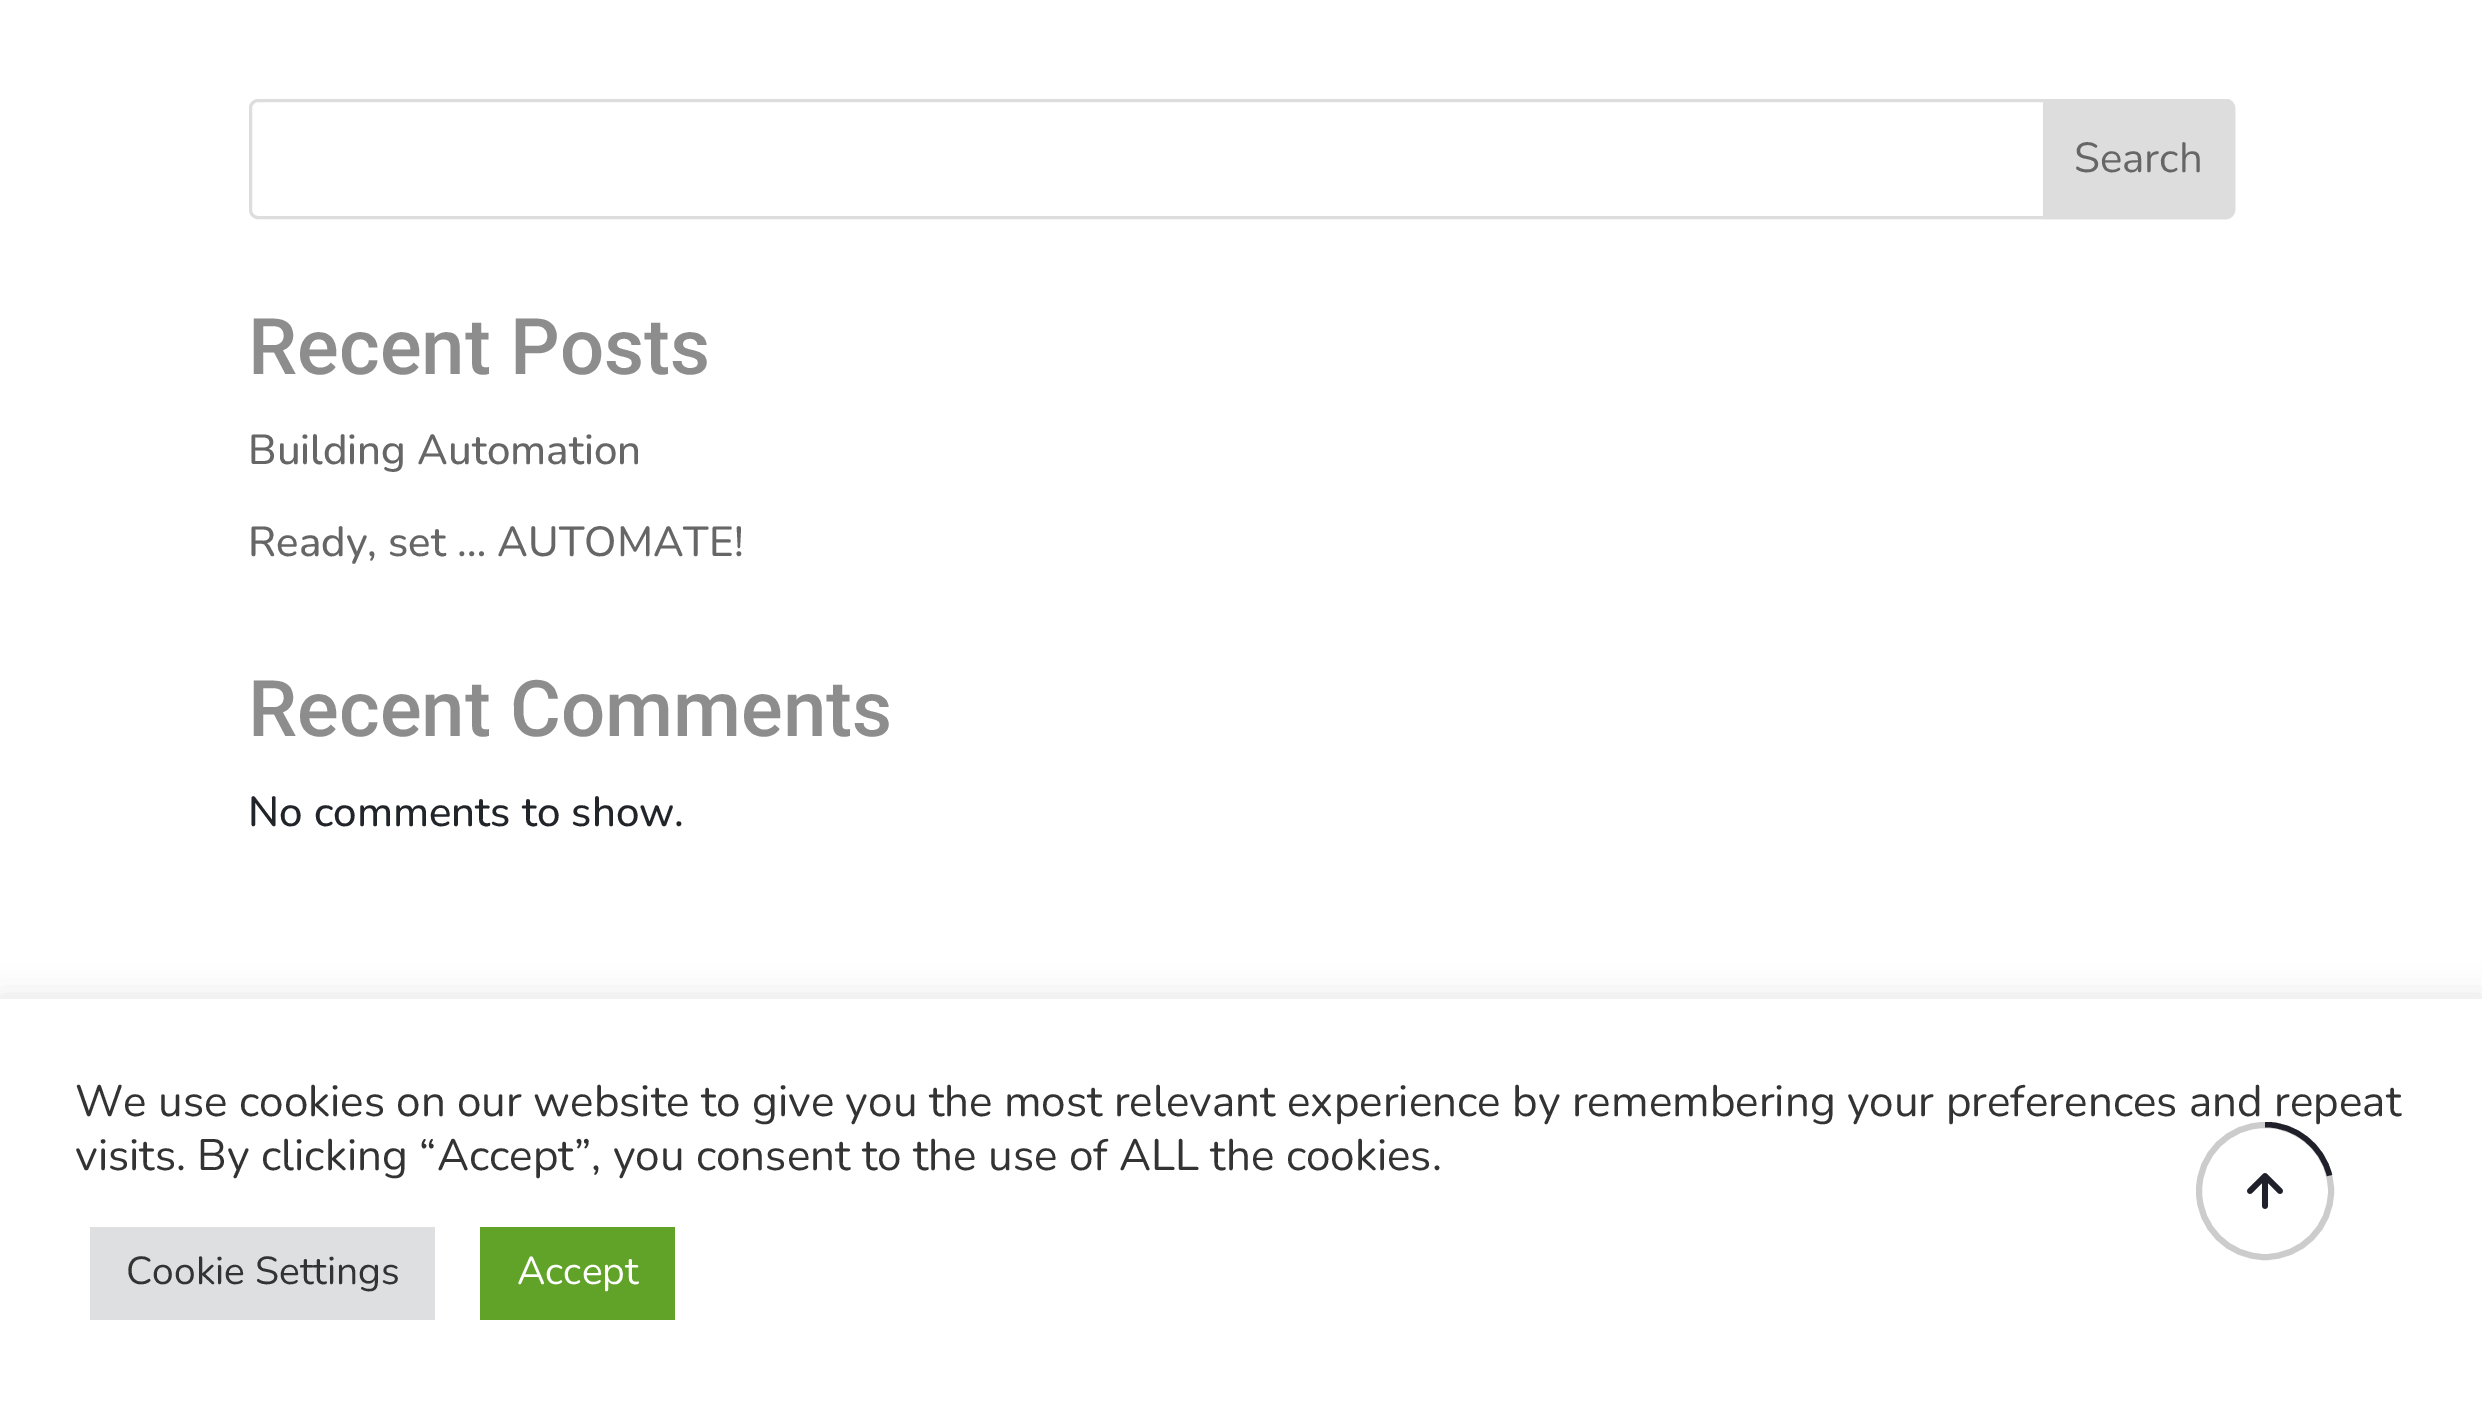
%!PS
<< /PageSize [2482 1409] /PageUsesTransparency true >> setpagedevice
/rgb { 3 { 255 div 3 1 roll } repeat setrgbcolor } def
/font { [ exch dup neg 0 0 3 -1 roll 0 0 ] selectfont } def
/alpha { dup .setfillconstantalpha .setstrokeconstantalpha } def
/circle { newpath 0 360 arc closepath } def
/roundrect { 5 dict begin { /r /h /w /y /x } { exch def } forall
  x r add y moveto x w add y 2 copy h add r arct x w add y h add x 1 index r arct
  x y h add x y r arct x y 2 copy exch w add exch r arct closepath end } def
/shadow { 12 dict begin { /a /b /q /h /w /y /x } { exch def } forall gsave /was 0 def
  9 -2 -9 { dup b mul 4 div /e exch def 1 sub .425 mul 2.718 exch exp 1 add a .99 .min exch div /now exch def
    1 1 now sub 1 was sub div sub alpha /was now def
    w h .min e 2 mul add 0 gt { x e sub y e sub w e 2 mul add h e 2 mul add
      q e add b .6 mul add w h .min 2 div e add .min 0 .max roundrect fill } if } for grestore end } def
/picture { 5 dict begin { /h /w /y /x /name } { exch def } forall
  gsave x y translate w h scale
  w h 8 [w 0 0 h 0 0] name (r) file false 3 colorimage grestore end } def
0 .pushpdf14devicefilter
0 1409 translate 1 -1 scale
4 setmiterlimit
255 255 255 rgb
0 0 2482 1409 rectfill
221 221 221 rgb
3 setlinewidth
250.5 100.5 1983 117 7.5 roundrect stroke
2044.5 100.5 moveto 2226 100.5 lineto 2230 100.5 2233.5 104 2233.5 108 curveto 2233.5 210 lineto 2233.5 214 2230 217.5 2226 217.5 curveto 2044.5 217.5 lineto closepath gsave fill grestore
stroke
172 171 171 rgb
0 996 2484 411 0 15 0.3 shadow
[
  [0 999 2482 410 255 255 255]
  [90 1227 345 93 222 223 224]
  [480 1227 195 93 97 162 41]
] { aload pop rgb rectfill } forall
/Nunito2-ExtraLight 42 font
102 102 102 rgb
2074 172 moveto (Search) show
/Roboto-Medium 78 font
141 141 141 rgb
248 374 moveto (Recent Posts) show
/Nunito-ExtraLight 42 font
102 102 102 rgb
248 464 moveto (Building Automation) show
248 556 moveto (Ready, set … AUTOMATE!) show
/Roboto-Medium 78 font
141 141 141 rgb
248 736 moveto (Recent Comments) show
/Nunito-ExtraLight 42 font
33 37 41 rgb
248 826 moveto (No comments to show.) show
/Nunito2-ExtraLight 44 font
51 51 51 rgb
75 1116 moveto (We use cookies on our website to give you the most relevant experience by remembering your preferences and repeat) show
75 1170 moveto (visits. By clicking “Accept”, you consent to the use of ALL the cookies.) show
/Nunito2-ExtraLight 39 font
126 1284 moveto (Cookie Settings) show
255 255 255 rgb
517 1284 moveto (Accept) show
204 204 204 rgb
6 setlinewidth
2265 1191 66 circle stroke
gsave
2196 1122 138 138 rectclip
31 32 41 rgb
5.4 setlinewidth
2265 1124.5 moveto 2296 1124.5 2322.5 1146.5 2329.5 1175.5 curveto stroke
grestore
(img/1.rgb) 2247 1173 36 36 picture
.poppdf14devicefilter showpage
